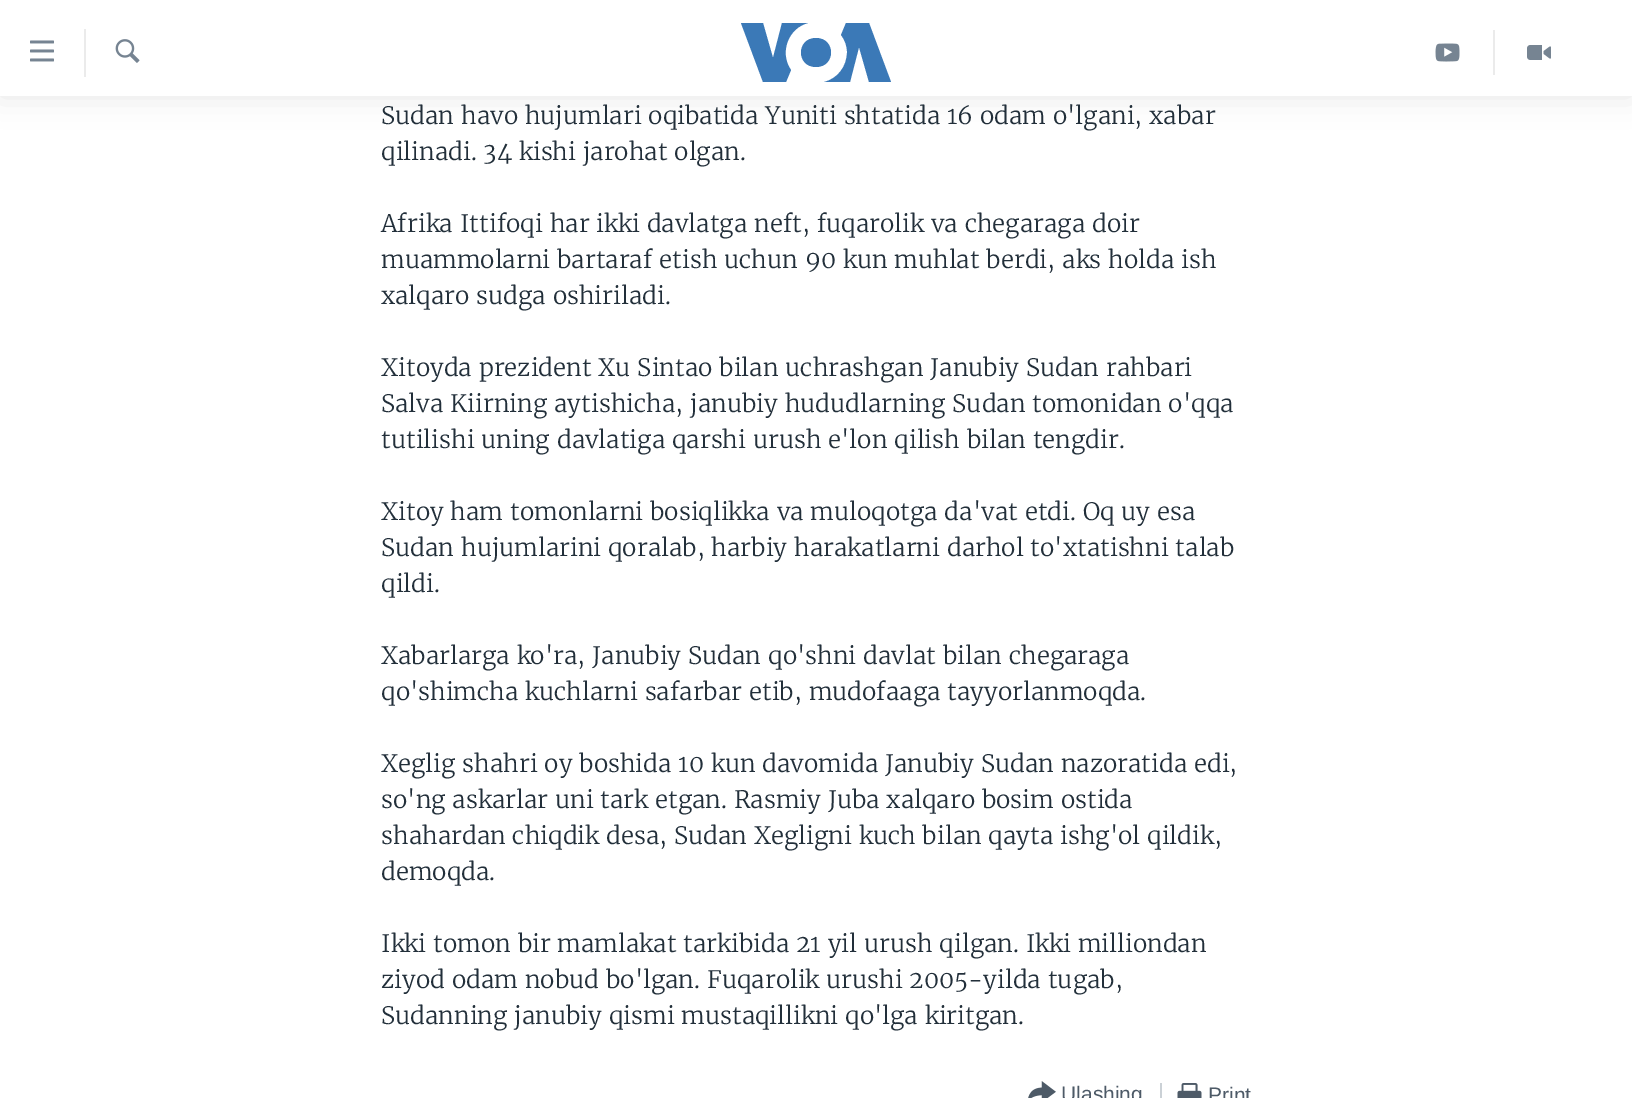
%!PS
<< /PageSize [1632 1098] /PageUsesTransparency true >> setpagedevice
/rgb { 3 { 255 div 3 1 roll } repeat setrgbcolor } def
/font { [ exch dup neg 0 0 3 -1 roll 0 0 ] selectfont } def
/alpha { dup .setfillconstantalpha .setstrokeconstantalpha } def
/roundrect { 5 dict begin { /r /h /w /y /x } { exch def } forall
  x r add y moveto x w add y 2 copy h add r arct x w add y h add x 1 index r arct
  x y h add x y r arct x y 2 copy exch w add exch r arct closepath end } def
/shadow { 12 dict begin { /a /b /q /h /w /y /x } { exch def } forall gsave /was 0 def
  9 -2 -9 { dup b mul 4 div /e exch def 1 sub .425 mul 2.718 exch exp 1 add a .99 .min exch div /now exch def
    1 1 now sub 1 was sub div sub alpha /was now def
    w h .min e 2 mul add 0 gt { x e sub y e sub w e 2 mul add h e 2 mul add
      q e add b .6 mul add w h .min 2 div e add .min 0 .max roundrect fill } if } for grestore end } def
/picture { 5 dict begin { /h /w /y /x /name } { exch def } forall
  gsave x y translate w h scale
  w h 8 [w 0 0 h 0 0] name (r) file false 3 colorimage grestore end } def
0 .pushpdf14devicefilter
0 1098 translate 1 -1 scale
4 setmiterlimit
255 255 255 rgb
0 0 1632 1098 rectfill
0 0 0 rgb
0 0 1632 96 0 15 0.1 shadow
255 255 255 rgb
0 0 1632 96 rectfill
(img/1.rgb) 30 40 24 22 picture
235 235 235 rgb
84 29 2 48 rectfill
(img/2.rgb) 115 39 25 24 picture
59 121 183 rgb
791 70 moveto 786 82 lineto 763 82 lineto 741 23 lineto 763 23 lineto 773 58 lineto 782 23 lineto 808 23 lineto 788 28 779 53 791 70 curveto closepath 816 38 moveto 796 38 796 67 816 67 curveto 836 67 836 38 816 38 curveto closepath 847 52 moveto 847 67 837 79 824 82 curveto 850 82 lineto 859 47 lineto 869 82 lineto 891 82 lineto 869 23 lineto 846 23 lineto 841 35 lineto 845 40 847 46 847 52 curveto closepath fill
235 235 235 rgb
1493 30 2 45 rectfill
(img/3.rgb) 1435 43 25 19 picture
(img/4.rgb) 1527 45 24 15 picture
(img/5.rgb) 1028 1081 28 17 picture
203 209 214 rgb
1160 1083 2 15 rectfill
(img/6.rgb) 1177 1083 25 15 picture
/Merriweather-Light 24 font
34 47 58 rgb
[
  [(Sudan havo hujumlari oqibatida Yuniti shtatida 16 odam o'lgani, xabar) 381 124]
  [(qilinadi. 34 kishi jarohat olgan.) 381 160]
  [(Afrika Ittifoqi har ikki davlatga neft, fuqarolik va chegaraga doir) 381 232]
  [(muammolarni bartaraf etish uchun 90 kun muhlat berdi, aks holda ish) 381 268]
  [(xalqaro sudga oshiriladi.) 381 304]
  [(Xitoyda prezident Xu Sintao bilan uchrashgan Janubiy Sudan rahbari) 381 376]
  [(Salva Kiirning aytishicha, janubiy hududlarning Sudan tomonidan o'qqa) 381 412]
  [(tutilishi uning davlatiga qarshi urush e'lon qilish bilan tengdir.) 381 448]
  [(Xitoy ham tomonlarni bosiqlikka va muloqotga da'vat etdi. Oq uy esa) 381 520]
  [(Sudan hujumlarini qoralab, harbiy harakatlarni darhol to'xtatishni talab) 381 556]
  [(qildi.) 381 592]
  [(Xabarlarga ko'ra, Janubiy Sudan qo'shni davlat bilan chegaraga) 381 664]
  [(qo'shimcha kuchlarni safarbar etib, mudofaaga tayyorlanmoqda.) 381 700]
  [(Xeglig shahri oy boshida 10 kun davomida Janubiy Sudan nazoratida edi,) 381 772]
  [(so'ng askarlar uni tark etgan. Rasmiy Juba xalqaro bosim ostida) 381 808]
  [(shahardan chiqdik desa, Sudan Xegligni kuch bilan qayta ishg'ol qildik,) 381 844]
  [(demoqda.) 381 880]
  [(Ikki tomon bir mamlakat tarkibida 21 yil urush qilgan. Ikki milliondan) 381 952]
  [(ziyod odam nobud bo'lgan. Fuqarolik urushi 2005-yilda tugab,) 381 988]
  [(Sudanning janubiy qismi mustaqillikni qo'lga kiritgan.) 381 1024]
] { aload pop moveto show } forall
/LiberationSans-Regular 21 font
77 90 103 rgb
1061 1101 moveto (Ulashing) show
1208 1102 moveto (Print) show
.poppdf14devicefilter showpage
